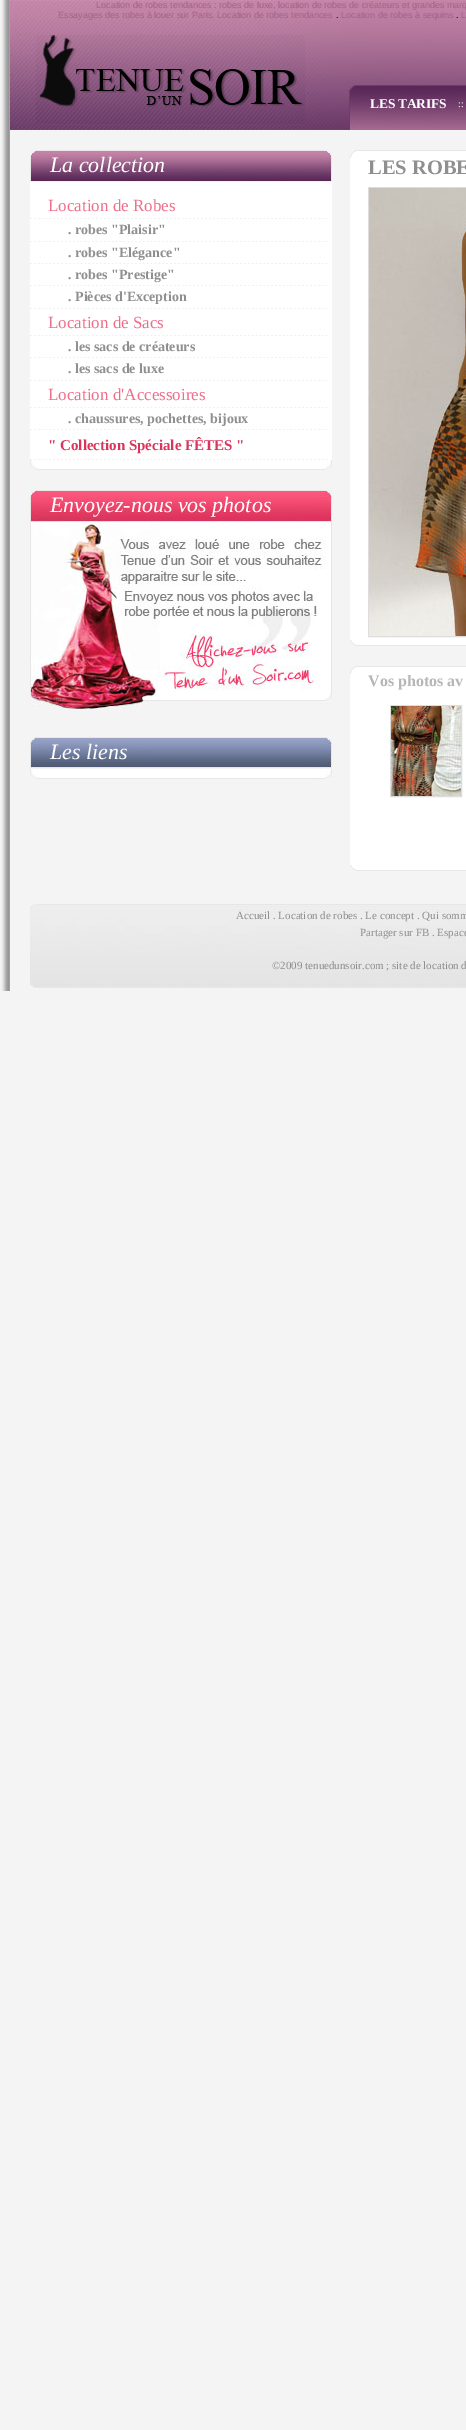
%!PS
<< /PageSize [466 2430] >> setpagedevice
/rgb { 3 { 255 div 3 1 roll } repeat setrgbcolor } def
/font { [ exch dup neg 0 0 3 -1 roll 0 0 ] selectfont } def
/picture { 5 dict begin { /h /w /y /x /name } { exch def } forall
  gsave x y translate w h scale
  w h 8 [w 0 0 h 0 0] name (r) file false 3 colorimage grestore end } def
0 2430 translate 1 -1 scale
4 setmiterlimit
244 244 244 rgb
0 0 466 2430 rectfill
(img/1.rgb) 1 0 9 991 picture
(img/2.rgb) 10 0 456 130 picture
(img/3.rgb) 36 35 269 90 picture
(img/4.rgb) 30 150 302 31 picture
255 255 255 rgb
30 182 302 278 rectfill
(img/5.rgb) 30 218 298 1 picture
(img/5.rgb) 30 241 298 1 picture
(img/5.rgb) 30 263 298 1 picture
(img/5.rgb) 30 285 298 1 picture
(img/5.rgb) 30 308 298 1 picture
(img/5.rgb) 30 335 298 1 picture
(img/5.rgb) 30 357 298 1 picture
(img/5.rgb) 30 380 298 1 picture
(img/5.rgb) 30 407 298 1 picture
(img/5.rgb) 30 429 298 1 picture
(img/5.rgb) 30 459 298 1 picture
(img/6.rgb) 30 460 302 10 picture
(img/7.rgb) 30 490 302 32 picture
(img/8.rgb) 30 522 302 187 picture
(img/9.rgb) 30 737 302 31 picture
(img/6.rgb) 30 769 302 10 picture
(img/10.rgb) 350 150 116 8 picture
350 158 116 482 rectfill
222 220 220 rgb
368.5 187.5 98 449 rectstroke
(img/11.rgb) 369 188 97 448 picture
(img/12.rgb) 350 640 116 6 picture
(img/10.rgb) 350 666 116 8 picture
255 255 255 rgb
350 674 116 191 rectfill
222 220 220 rgb
390.5 705.5 71 91 rectstroke
(img/13.rgb) 391 706 70 90 picture
(img/12.rgb) 350 865 116 6 picture
(img/14.rgb) 30 904 436 84 picture
/LiberationSans-Regular 9 font
162 98 135 rgb
96 8 moveto (Location de robes tendances : robes de luxe, location de robes de créateurs et grandes marq) show
58 18 moveto (Essayages des robes à louer sur Paris. Location de robes tendances) show
0 0 0 rgb
336 18 moveto (.) show
162 98 135 rgb
341 18 moveto (Location de robes à sequins) show
0 0 0 rgb
456 18 moveto (.) show
162 98 135 rgb
461 18 moveto (L) show
/LiberationSerif-Bold 13.5 font
255 255 255 rgb
370 108 moveto -0.25 0 (LES TARIFS) ashow
/LiberationSerif-Regular 10 font
458 107 moveto (::) show
/LiberationSerif-Italic 22 font
50 172 moveto (La collection) show
/LiberationSerif-Regular 17 font
239 110 138 rgb
48 211 moveto (Location de Robes) show
/LiberationSerif-Bold 14 font
143 143 143 rgb
[
  [(. robes "Plaisir") 68 234]
  [(. robes "Elégance") 68 257]
  [(. robes "Prestige") 68 279]
  [(. Pièces d'Exception) 68 301]
] { aload pop moveto show } forall
/LiberationSerif-Regular 17 font
239 110 138 rgb
48 328 moveto (Location de Sacs) show
/LiberationSerif-Bold 14 font
143 143 143 rgb
68 351 moveto (. les sacs de créateurs) show
68 373 moveto (. les sacs de luxe) show
/LiberationSerif-Regular 17 font
239 110 138 rgb
48 400 moveto (Location d'Accessoires) show
/LiberationSerif-Bold 14 font
143 143 143 rgb
68 423 moveto (. chaussures, pochettes, bijoux) show
/LiberationSerif-Bold 15 font
217 52 91 rgb
48 450 moveto (" Collection Spéciale FÊTES ") show
/LiberationSerif-Italic 22 font
255 255 255 rgb
50 512 moveto (Envoyez-nous vos photos) show
50 759 moveto (Les liens) show
/LiberationSerif-Bold 20.5 font
143 143 143 rgb
368 174 moveto (LES ROBE) show
/LiberationSerif-Bold 16 font
182 182 182 rgb
368 686 moveto (Vos photos av) show
/LiberationSerif-Regular 11 font
143 143 143 rgb
[
  [(Accueil . Location de robes . Le concept . Qui somm) 236 919]
  [(Partager sur FB . Espace) 360 936]
  [(©2009 tenuedunsoir.com ; site de location d) 272 969]
] { aload pop moveto show } forall
showpage
